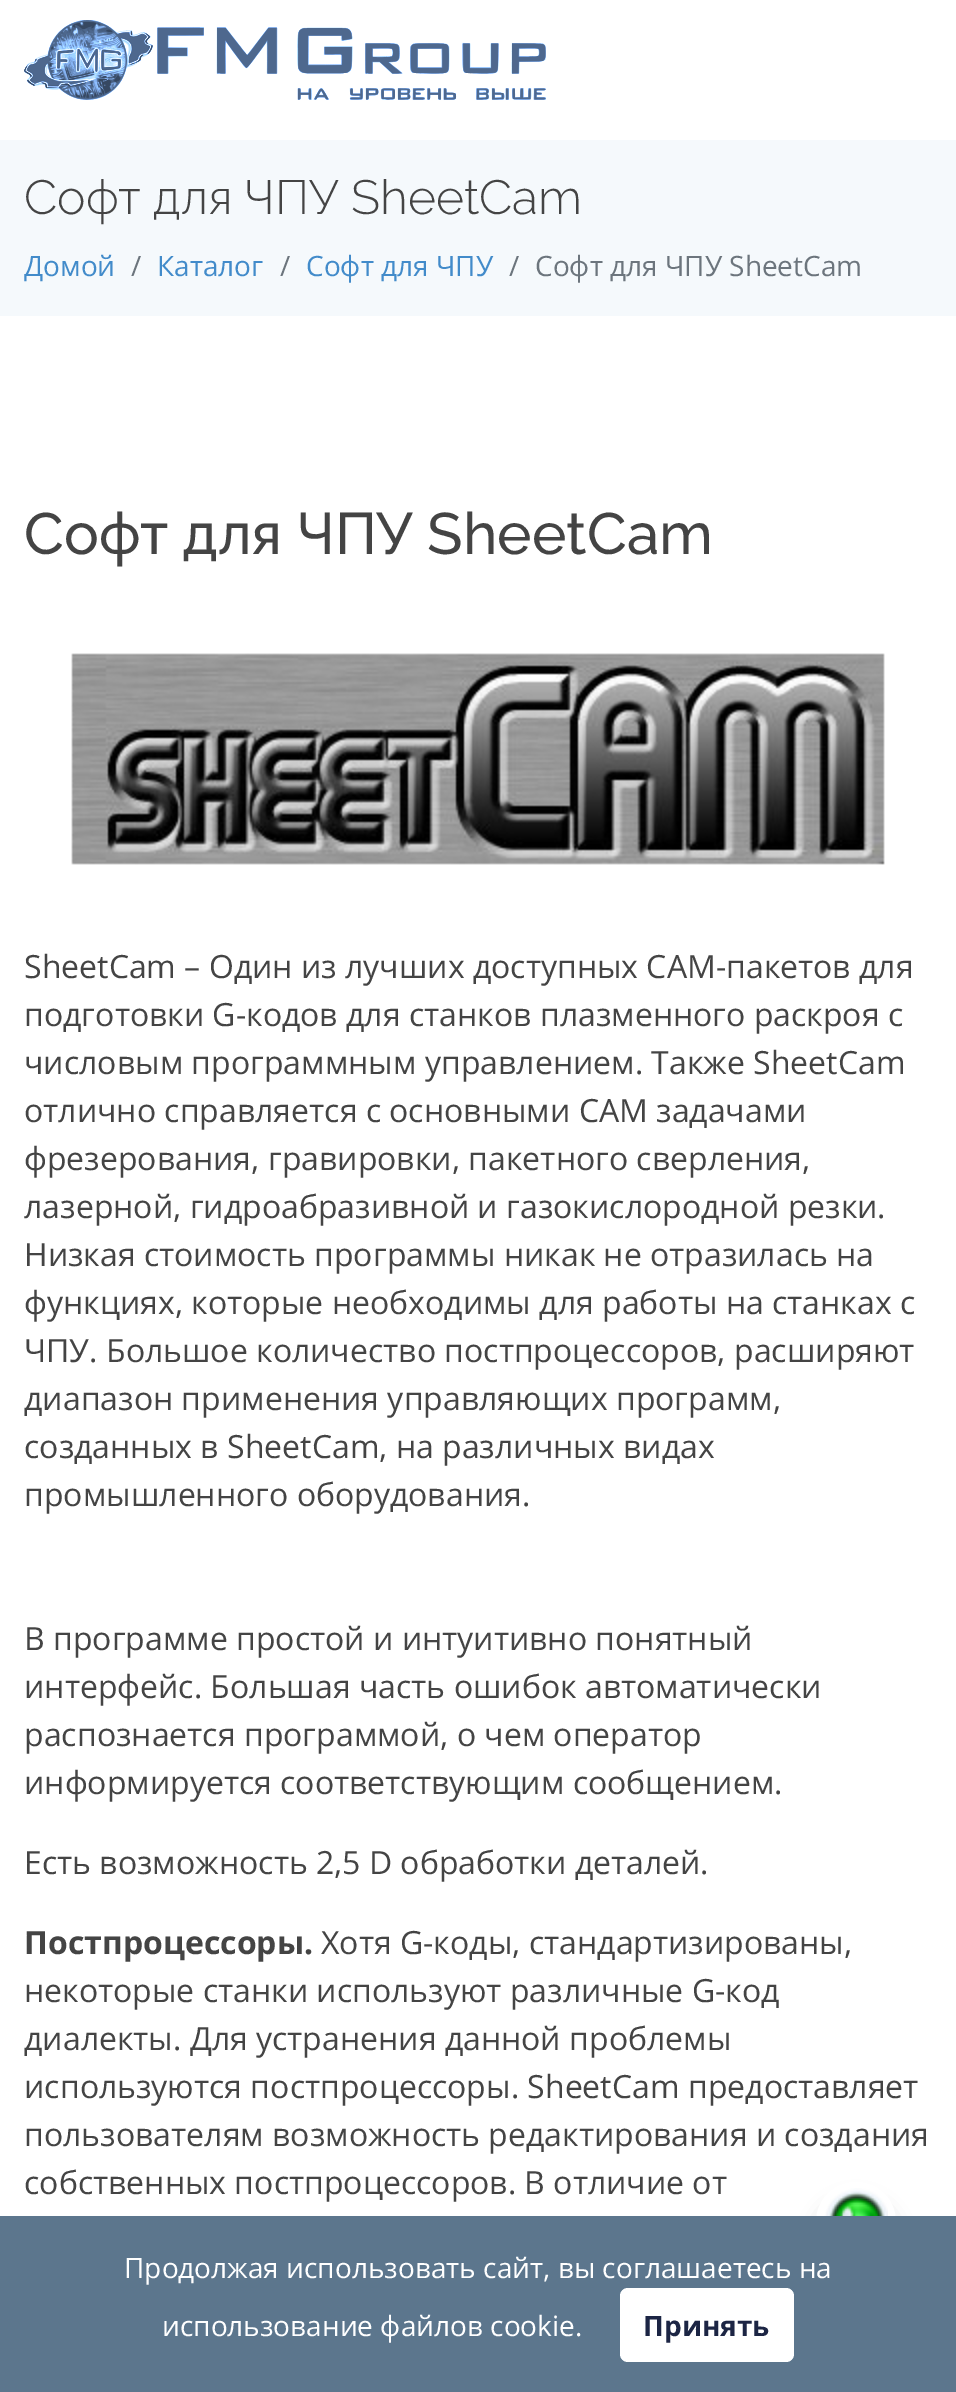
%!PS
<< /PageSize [956 2392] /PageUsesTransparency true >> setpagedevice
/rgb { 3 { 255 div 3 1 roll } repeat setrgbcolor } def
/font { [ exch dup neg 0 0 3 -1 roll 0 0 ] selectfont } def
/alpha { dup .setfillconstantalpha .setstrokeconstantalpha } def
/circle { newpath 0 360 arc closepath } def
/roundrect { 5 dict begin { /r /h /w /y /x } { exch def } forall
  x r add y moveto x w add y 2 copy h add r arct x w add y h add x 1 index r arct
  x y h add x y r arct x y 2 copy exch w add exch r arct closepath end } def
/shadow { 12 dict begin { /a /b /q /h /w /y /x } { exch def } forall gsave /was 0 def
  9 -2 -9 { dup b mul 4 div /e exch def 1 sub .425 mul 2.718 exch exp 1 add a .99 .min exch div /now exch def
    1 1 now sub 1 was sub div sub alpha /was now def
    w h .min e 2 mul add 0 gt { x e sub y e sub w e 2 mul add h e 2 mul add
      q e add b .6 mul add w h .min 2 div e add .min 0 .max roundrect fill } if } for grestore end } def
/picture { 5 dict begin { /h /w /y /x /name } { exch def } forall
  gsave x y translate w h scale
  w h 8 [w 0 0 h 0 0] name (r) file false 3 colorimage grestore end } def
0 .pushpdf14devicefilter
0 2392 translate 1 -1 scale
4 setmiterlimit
255 255 255 rgb
0 0 956 2392 rectfill
(img/1.rgb) 24 20 522 80 picture
245 249 252 rgb
0 140 956 176 rectfill
(img/2.rgb) 71 653 814 212 picture
0 0 0 rgb
816 2202 80 80 40 10 0.17 shadow
255 255 255 rgb
856 2222 40 circle fill
92 118 141 rgb
0 2216 956 176 rectfill
255 255 255 rgb
620 2288 174 74 8 roundrect fill
(img/3.rgb) 824 2188 64 28 picture
/Raleway-Light 48 font
68 68 68 rgb
24 214 moveto (Софт для ЧПУ SheetCam) show
/OpenSans-Regular 28 font
66 139 202 rgb
24 276 moveto (Домой) show
108 117 125 rgb
131 276 moveto (/) show
66 139 202 rgb
157 276 moveto (Каталог) show
108 117 125 rgb
280 276 moveto (/) show
66 139 202 rgb
306 276 moveto (Софт для ЧПУ) show
108 117 125 rgb
509 276 moveto (/) show
535 276 moveto (Софт для ЧПУ SheetCam) show
/Raleway-Medium 58.3 font
68 68 68 rgb
24 554 moveto (Софт для ЧПУ SheetCam) show
/OpenSans-Regular 32 font
[
  [(SheetCam – Один из лучших доступных CAM-пакетов для) 24 978]
  [(подготовки G-кодов для станков плазменного раскроя с) 24 1026]
  [(числовым программным управлением. Также SheetCam) 24 1074]
  [(отлично справляется с основными CAM задачами) 24 1122]
  [(фрезерования, гравировки, пакетного сверления,) 24 1170]
  [(лазерной, гидроабразивной и газокислородной резки.) 24 1218]
  [(Низкая стоимость программы никак не отразилась на) 24 1266]
  [(функциях, которые необходимы для работы на станках с) 24 1314]
  [(ЧПУ. Большое количество постпроцессоров, расширяют) 24 1362]
  [(диапазон применения управляющих программ,) 24 1410]
  [(созданных в SheetCam, на различных видах) 24 1458]
  [(промышленного оборудования.) 24 1506]
  [(В программе простой и интуитивно понятный) 24 1650]
  [(интерфейс. Большая часть ошибок автоматически) 24 1698]
  [(распознается программой, о чем оператор) 24 1746]
  [(информируется соответствующим сообщением.) 24 1794]
  [(Есть возможность 2,5 D обработки деталей.) 24 1874]
] { aload pop moveto show } forall
/OpenSans-Bold 32 font
24 1954 moveto (Постпроцессоры.) show
/OpenSans-Regular 32 font
[
  [(Хотя G-коды, стандартизированы,) 321 1954]
  [(некоторые станки используют различные G-код) 24 2002]
  [(диалекты. Для устранения данной проблемы) 24 2050]
  [(используются постпроцессоры. SheetCam предоставляет) 24 2098]
  [(пользователям возможность редактирования и создания) 24 2146]
  [(собственных постпроцессоров. В отличие от) 24 2194]
] { aload pop moveto show } forall
/OpenSans-Regular 28 font
255 255 255 rgb
124 2278 moveto (Продолжая использовать сайт, вы соглашаетесь на) show
162 2336 moveto (использование файлов cookie.) show
/OpenSans-Bold 28 font
28 37 68 rgb
643 2336 moveto (Принять) show
.poppdf14devicefilter showpage
